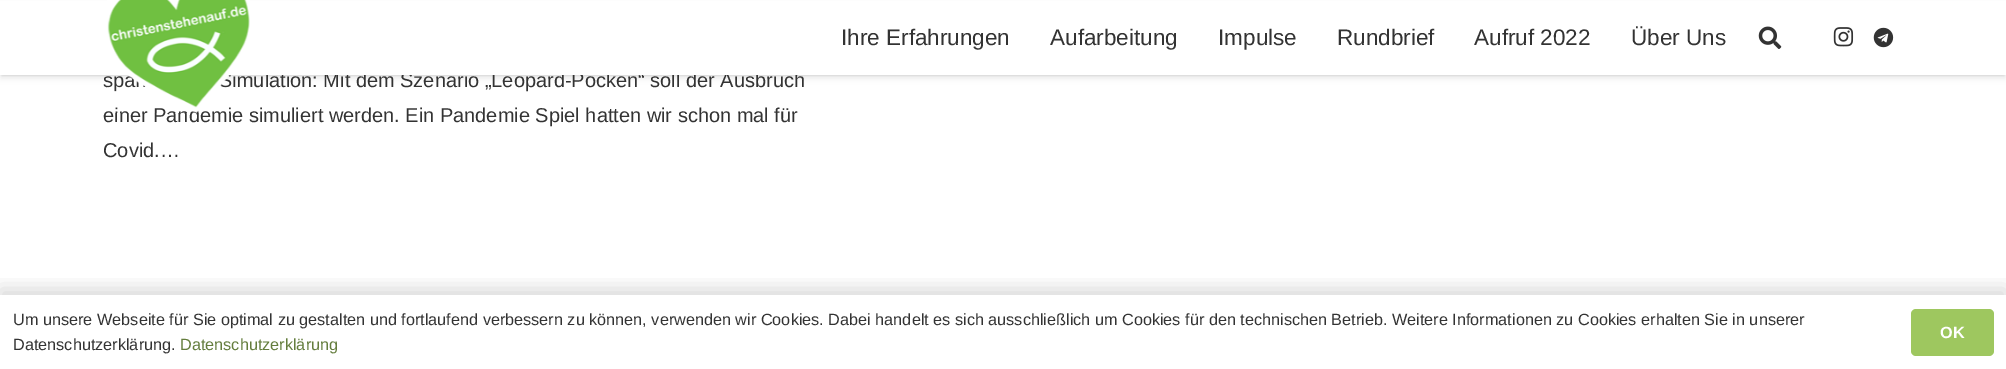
%!PS
<< /PageSize [2006 369] /PageUsesTransparency true >> setpagedevice
/rgb { 3 { 255 div 3 1 roll } repeat setrgbcolor } def
/font { [ exch dup neg 0 0 3 -1 roll 0 0 ] selectfont } def
/alpha { dup .setfillconstantalpha .setstrokeconstantalpha } def
/roundrect { 5 dict begin { /r /h /w /y /x } { exch def } forall
  x r add y moveto x w add y 2 copy h add r arct x w add y h add x 1 index r arct
  x y h add x y r arct x y 2 copy exch w add exch r arct closepath end } def
/shadow { 12 dict begin { /a /b /q /h /w /y /x } { exch def } forall gsave /was 0 def
  9 -2 -9 { dup b mul 4 div /e exch def 1 sub .425 mul 2.718 exch exp 1 add a .99 .min exch div /now exch def
    1 1 now sub 1 was sub div sub alpha /was now def
    w h .min e 2 mul add 0 gt { x e sub y e sub w e 2 mul add h e 2 mul add
      q e add b .6 mul add w h .min 2 div e add .min 0 .max roundrect fill } if } for grestore end } def
/picture { 5 dict begin { /h /w /y /x /name } { exch def } forall
  gsave x y translate w h scale
  w h 8 [w 0 0 h 0 0] name (r) file false 3 colorimage grestore end } def
0 .pushpdf14devicefilter
0 369 translate 1 -1 scale
4 setmiterlimit
255 255 255 rgb
0 0 2006 369 rectfill
0 0 0 rgb
1 4 2004 72 0 0.5 0.05 shadow
1 5 2004 73 0 3 0.1 shadow
gsave
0 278 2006 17 rectclip
0 289 2006 75 0 9.5 0.15 shadow
grestore
158 199 95 rgb
1911 309 83 47 5 roundrect fill
/LiberationSans-Regular 20 font
51 51 51 rgb
103 87 moveto (spa) show
219 87 moveto (Simulation: Mit dem Szenario „Leopard-Pocken“ soll der Ausbruch) show
255 255 255 rgb
0 1 2006 74 rectfill
(img/2.rgb) 1758 26 24 23 picture
/LiberationSans-Regular 22.5 font
51 51 51 rgb
[
  [(Über Uns) 1631 45]
  [(Aufruf 2022) 1474 45]
  [(Rundbrief) 1337 45]
  [(Impulse) 1218 45]
  [(Aufarbeitung) 1050 45]
  [(Ihre Erfahrungen) 841 45]
] { aload pop moveto show } forall
(img/4.rgb) 1873 27 21 21 picture
(img/3.rgb) 1833 27 21 20 picture
/LiberationSans-Regular 20 font
103 122 moveto (einer Pandemie simuliert werden. Ein Pandemie Spiel hatten wir schon mal für) show
(img/1.rgb) 107 0 143 113 picture
103 157 moveto (Covid.…) show
/LiberationSans-Regular 16.25 font
13 325 moveto (Um unsere Webseite für Sie optimal zu gestalten und fortlaufend verbessern zu können, verwenden wir Cookies. Dabei handelt es sich ausschließlich um Cookies für den technischen Betrieb. Weitere Informationen zu Cookies erhalten Sie in unserer) show
13 350 moveto (Datenschutzerklärung.) show
100 125 61 rgb
180 350 moveto (Datenschutzerklärung) show
/LiberationSans-Bold 16.25 font
255 255 255 rgb
1940 338 moveto (OK) show
.poppdf14devicefilter showpage
